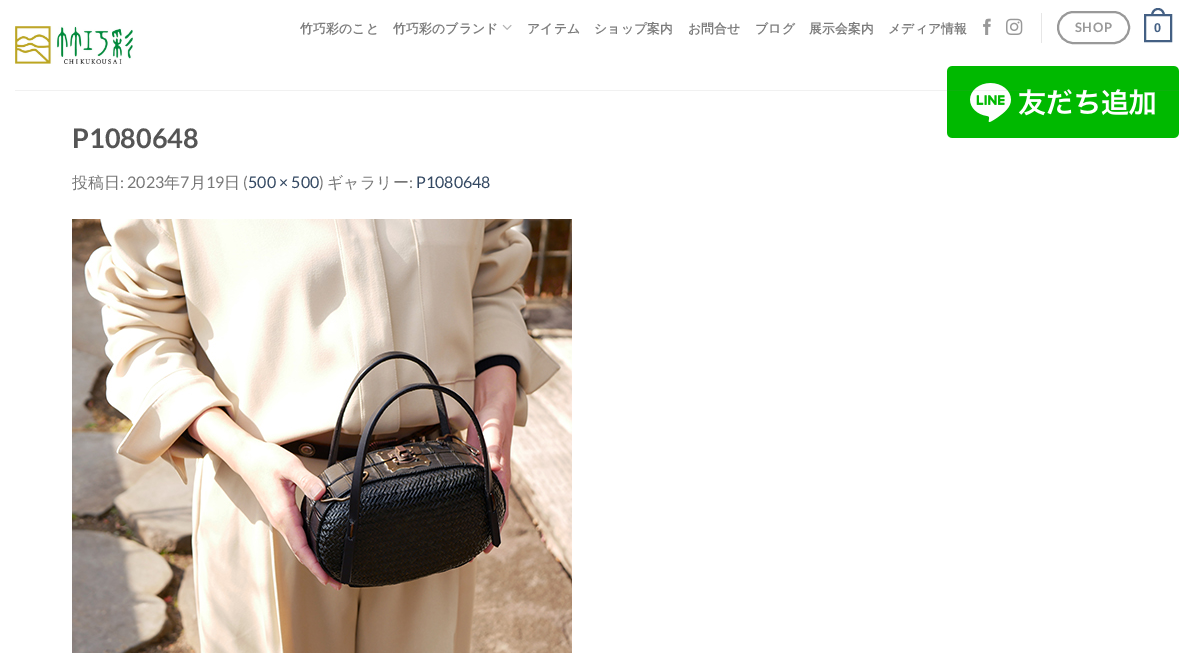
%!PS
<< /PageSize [1194 653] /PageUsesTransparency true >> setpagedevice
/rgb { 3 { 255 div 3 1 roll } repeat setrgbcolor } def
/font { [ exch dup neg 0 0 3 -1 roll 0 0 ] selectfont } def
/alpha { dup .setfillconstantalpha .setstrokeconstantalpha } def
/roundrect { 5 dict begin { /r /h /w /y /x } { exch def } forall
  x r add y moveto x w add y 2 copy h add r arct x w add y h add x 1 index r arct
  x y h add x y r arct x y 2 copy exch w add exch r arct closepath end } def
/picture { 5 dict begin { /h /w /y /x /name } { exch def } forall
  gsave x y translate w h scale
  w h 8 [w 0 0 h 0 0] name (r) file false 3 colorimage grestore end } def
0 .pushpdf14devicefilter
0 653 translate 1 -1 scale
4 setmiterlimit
255 255 255 rgb
0 0 1194 653 rectfill
(img/1.rgb) 15 26 118 38 picture
(img/2.rgb) 502 24 10 6 picture
(img/3.rgb) 983 18 8 17 picture
(img/4.rgb) 1006 18 17 17 picture
230 230 230 rgb
1041 13 1 30 rectfill
153 153 153 rgb
2 setlinewidth
1058 12 71 31 15.5 roundrect stroke
68 96 132 rgb
1145 15 26 26 rectstroke
1158 8 moveto 1162.5 8 1165 12 1165 16 curveto 1151 16 lineto 1151 12 1153.5 8 1158 8 curveto closepath 1158 10 moveto 1161.5 10 1163 13 1163 16 curveto 1153 16 lineto 1153 13 1154.5 10 1158 10 curveto closepath eofill
(img/5.rgb) 947 66 232 72 picture
0.1 alpha
119 119 119 rgb
15 90 1164 1 rectfill
1 alpha
(img/6.rgb) 72 219 500 434 picture
/WenQuanYiZenHei-Bold 12.75 font
125 125 125 rgb
300 33 moveto 0.25 0 (竹巧彩のこと) ashow
393 33 moveto 0.25 0 (竹巧彩のブランド) ashow
527 33 moveto 0.25 0 (アイテム) ashow
594 33 moveto 0.25 0 (ショップ案内) ashow
688 33 moveto 0.25 0 (お問合せ) ashow
755 33 moveto 0.25 0 (ブログ) ashow
809 33 moveto 0.25 0 (展示会案内) ashow
888 33 moveto 0.25 0 (メディア情報) ashow
/Lato-Bold 13 font
153 153 153 rgb
1075 32 moveto 0.5 0 (SHOP) ashow
/LiberationSans-Bold 12.75 font
68 96 132 rgb
1154 32 moveto 0.25 0 (0) ashow
/Lato-Bold 27 font
85 85 85 rgb
72 148 moveto (P1080648) show
/WenQuanYiZenHei-Medium 16 font
119 119 119 rgb
72 188 moveto (投稿日) show
/Lato-Regular 16 font
120 188 moveto (: 2023) show
/WenQuanYiZenHei-Medium 16 font
164 188 moveto (年) show
/Lato-Regular 16 font
180 188 moveto (7) show
/WenQuanYiZenHei-Medium 16 font
190 188 moveto (月) show
/Lato-Regular 16 font
206 188 moveto (19) show
/WenQuanYiZenHei-Medium 16 font
224 188 moveto (日) show
/Lato-Regular 16 font
243 188 moveto (\() show
51 72 98 rgb
248 188 moveto (500 × 500) show
119 119 119 rgb
319 188 moveto (\)) show
/WenQuanYiZenHei-Medium 16 font
327 188 moveto (ギャラリー) show
/Lato-Regular 16 font
409 188 moveto (:) show
51 72 98 rgb
416 188 moveto (P1080648) show
.poppdf14devicefilter showpage
